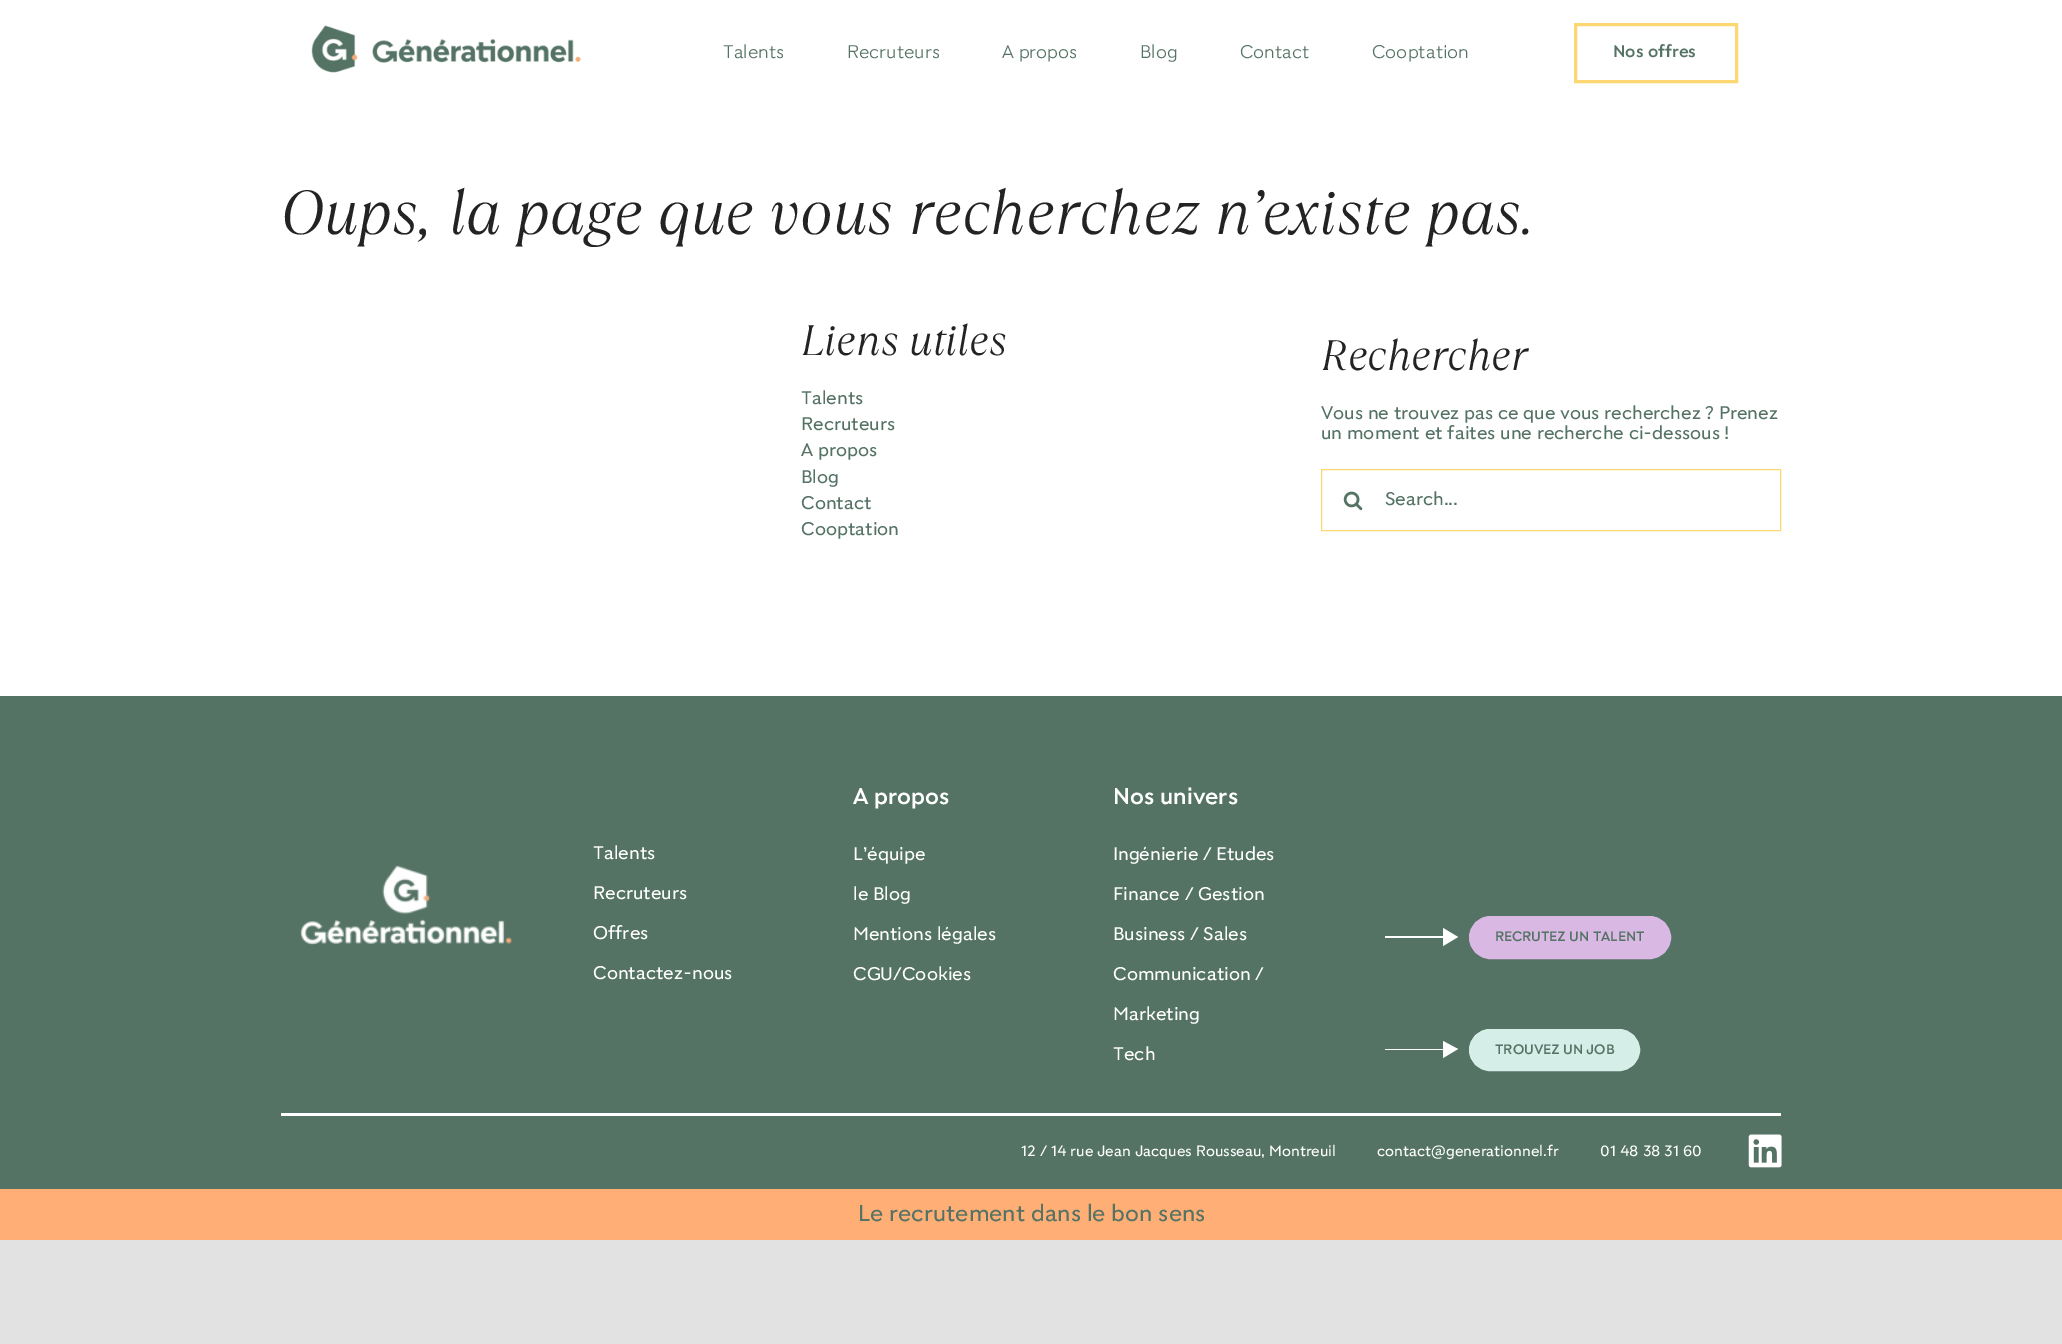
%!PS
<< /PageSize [2062 1344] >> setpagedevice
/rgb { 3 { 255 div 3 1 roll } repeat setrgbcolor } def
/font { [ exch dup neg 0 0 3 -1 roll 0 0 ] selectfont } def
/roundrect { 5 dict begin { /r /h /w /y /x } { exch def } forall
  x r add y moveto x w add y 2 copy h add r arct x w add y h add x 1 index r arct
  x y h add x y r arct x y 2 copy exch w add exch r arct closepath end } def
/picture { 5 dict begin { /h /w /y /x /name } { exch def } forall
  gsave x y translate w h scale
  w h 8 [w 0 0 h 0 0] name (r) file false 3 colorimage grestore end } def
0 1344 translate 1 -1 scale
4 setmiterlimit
226 226 226 rgb
0 0 2062 1344 rectfill
255 255 255 rgb
0 0 2062 696 rectfill
(img/1.rgb) 311 25 270 48 picture
252 215 114 rgb
3 setlinewidth
1575.5 24.5 161 57 rectstroke
1 setlinewidth
1321.5 469.5 459 61 rectstroke
(img/2.rgb) 1343 491 20 20 picture
85 115 101 rgb
0 696 2062 493 rectfill
(img/3.rgb) 300 865 212 80 picture
255 255 255 rgb
1458 937 moveto 1443 928 lineto 1443 936 lineto 1385 936 lineto 1385 938 lineto 1443 938 lineto 1443 946 lineto closepath fill
217 184 227 rgb
1469.5 916.5 201 42 21 roundrect gsave fill grestore
stroke
255 255 255 rgb
1458 1049 moveto 1443 1041 lineto 1443 1049 lineto 1385 1049 lineto 1385 1050 lineto 1443 1050 lineto 1443 1058 lineto closepath fill
213 238 231 rgb
1469.5 1029.5 170 41 20.5 roundrect gsave fill grestore
stroke
255 255 255 rgb
281 1113 1500 3 rectfill
(img/4.rgb) 1748 1134 34 34 picture
255 174 117 rgb
0 1189 2062 51 rectfill
/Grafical-Light 20 font
85 115 101 rgb
[
  [(Talents) 723 58]
  [(Recruteurs) 847 58]
  [(A propos) 1002 58]
  [(Blog) 1140 58]
  [(Contact) 1240 58]
  [(Cooptation) 1372 58]
] { aload pop moveto show } forall
/Grafical-Medium 18.5 font
1613 57 moveto (Nos offres) show
/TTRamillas-LightItalic 62 font
35 35 35 rgb
281 234 moveto (Oups, la page que vous recherchez n’existe pas.) show
/TTRamillas-LightItalic 42.5 font
801 355 moveto (Liens utiles) show
/Grafical-Regular 20 font
85 115 101 rgb
[
  [(Talents) 801 404]
  [(Recruteurs) 801 430]
  [(A propos) 801 456]
  [(Blog) 801 483]
  [(Contact) 801 509]
  [(Cooptation) 801 535]
] { aload pop moveto show } forall
/TTRamillas-LightItalic 42.5 font
35 35 35 rgb
1321 370 moveto (Rechercher) show
/Grafical-Regular 20 font
85 115 101 rgb
[
  [(Vous ne trouvez pas ce que vous recherchez ? Prenez) 1321 419]
  [(un moment et faites une recherche ci-dessous !) 1321 439]
  [(Search...) 1385 505]
] { aload pop moveto show } forall
255 255 255 rgb
[
  [(Talents) 593 859]
  [(Recruteurs) 593 899]
  [(Offres) 593 939]
  [(Contactez-nous) 593 979]
] { aload pop moveto show } forall
/Grafical-Medium 25 font
853 804 moveto (A propos) show
/Grafical-Regular 20 font
[
  [(L’équipe) 853 860]
  [(le Blog) 853 900]
  [(Mentions légales) 853 940]
  [(CGU/Cookies) 853 980]
] { aload pop moveto show } forall
/Grafical-Medium 25 font
1113 804 moveto (Nos univers) show
/Grafical-Regular 20 font
[
  [(Ingénierie / Etudes) 1113 860]
  [(Finance / Gestion) 1113 900]
  [(Business / Sales) 1113 940]
  [(Communication /) 1113 980]
  [(Marketing) 1113 1020]
  [(Tech) 1113 1060]
] { aload pop moveto show } forall
/Grafical-Medium 15 font
85 115 101 rgb
1495 941 moveto (RECRUTEZ UN TALENT) show
1495 1054 moveto (TROUVEZ UN JOB) show
/Grafical-Regular 16.25 font
255 255 255 rgb
[
  [(12 / 14 rue Jean Jacques Rousseau, Montreuil) 1021 1156]
  [(contact@generationnel.fr) 1377 1156]
  [(01 48 38 31 60) 1600 1156]
] { aload pop moveto show } forall
/Grafical-Regular 25 font
85 115 101 rgb
858 1221 moveto (Le recrutement dans le bon sens) show
showpage
